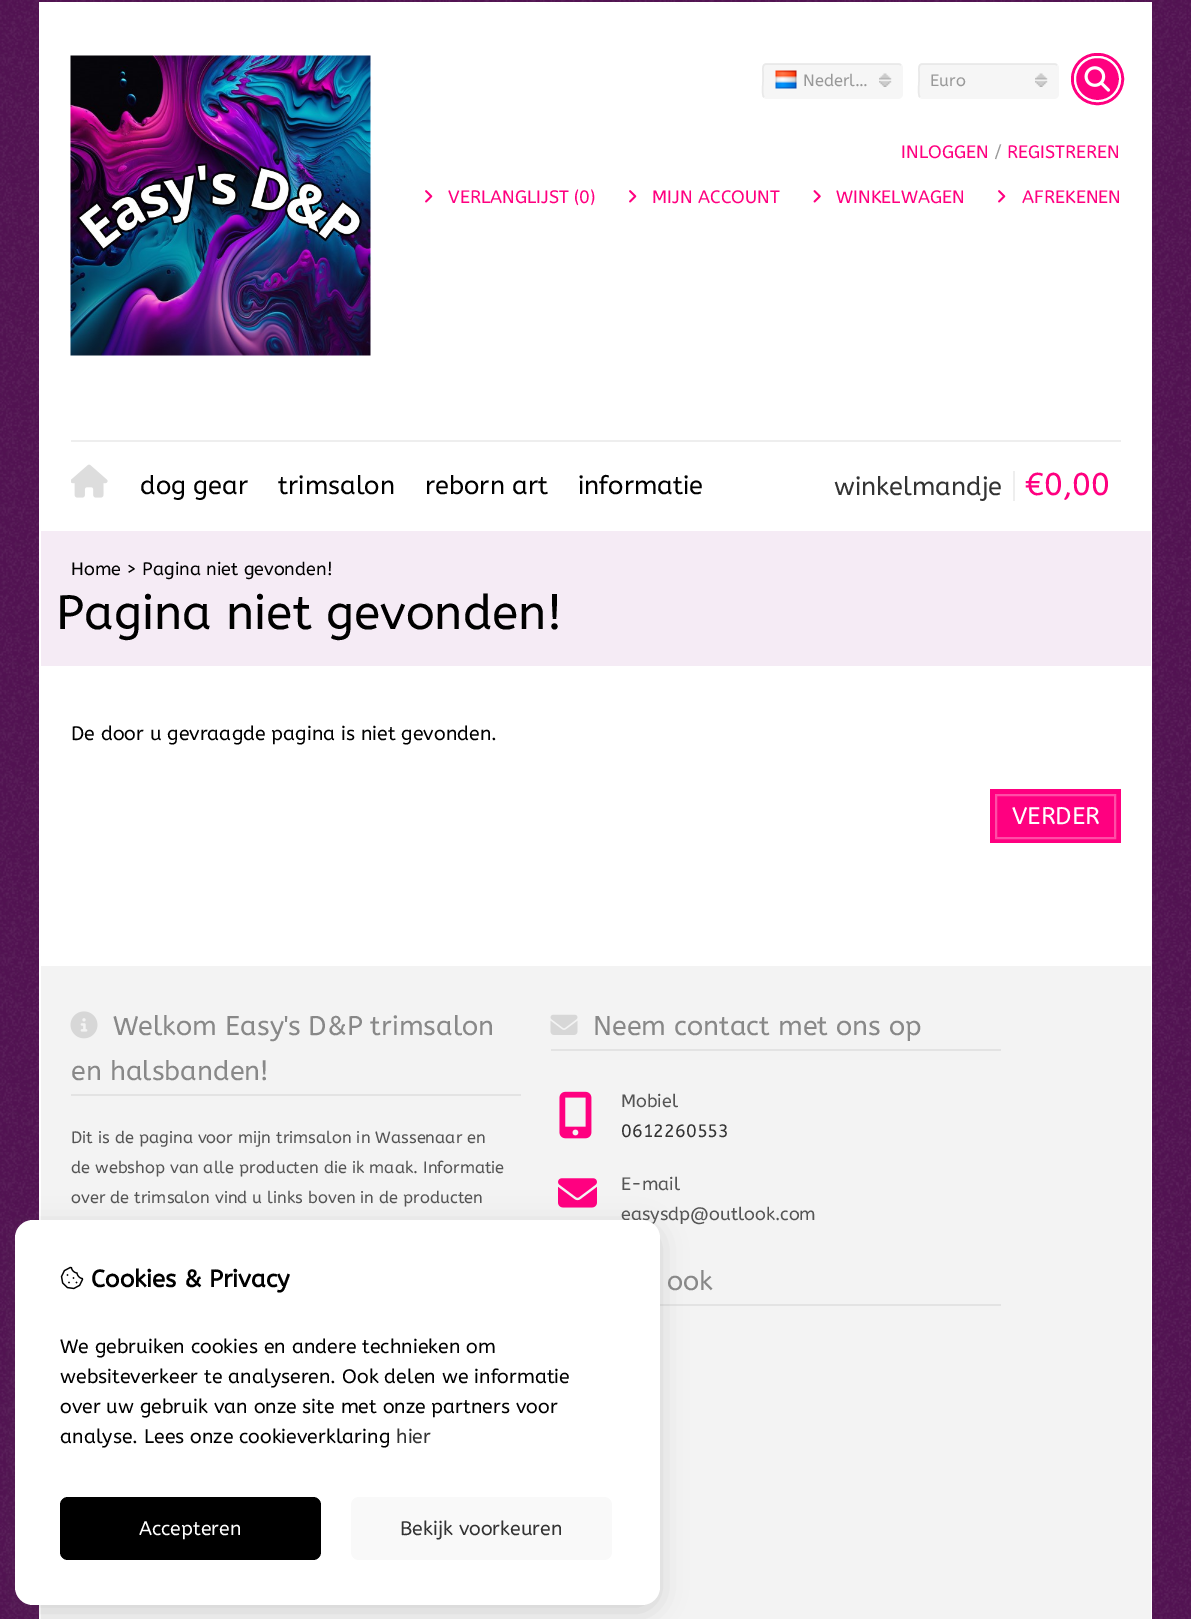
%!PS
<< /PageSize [1191 1619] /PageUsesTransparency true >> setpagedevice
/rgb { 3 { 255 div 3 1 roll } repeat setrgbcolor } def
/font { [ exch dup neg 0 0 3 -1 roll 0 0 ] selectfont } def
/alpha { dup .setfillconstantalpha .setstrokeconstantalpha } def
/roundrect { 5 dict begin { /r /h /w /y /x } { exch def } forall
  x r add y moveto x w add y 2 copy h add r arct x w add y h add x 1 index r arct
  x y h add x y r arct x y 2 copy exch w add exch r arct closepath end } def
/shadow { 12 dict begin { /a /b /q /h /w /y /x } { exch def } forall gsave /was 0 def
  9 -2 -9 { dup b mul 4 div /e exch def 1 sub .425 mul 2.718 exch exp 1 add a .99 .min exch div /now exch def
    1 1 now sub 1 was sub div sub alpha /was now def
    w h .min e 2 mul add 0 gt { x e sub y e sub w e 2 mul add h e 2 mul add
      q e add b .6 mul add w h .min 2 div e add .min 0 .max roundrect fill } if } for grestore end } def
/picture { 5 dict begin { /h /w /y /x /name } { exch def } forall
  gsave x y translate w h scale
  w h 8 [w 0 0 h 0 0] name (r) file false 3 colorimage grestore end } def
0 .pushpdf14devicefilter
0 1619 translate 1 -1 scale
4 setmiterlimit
82 18 82 rgb
0 0 1191 1619 rectfill
(img/1.rgb) 0 0 1191 1619 picture
255 255 255 rgb
39 2 1113 1617 rectfill
(img/2.rgb) 70 55 301 301 picture
246 246 246 rgb
762 63 141 36 5 roundrect fill
(img/3.rgb) 879 73 13 14 picture
233 233 233 rgb
1.5 setlinewidth
764 97 moveto 761.5 95 763 84 763 81 curveto 763 72 lineto 763 69 762 64 766.5 64 curveto 899 64 lineto 901 65 lineto stroke
(img/4.rgb) 775 70 22 19 picture
246 246 246 rgb
918 63 141 36 5 roundrect fill
(img/5.rgb) 1035 73 13 14 picture
233 233 233 rgb
920 97 moveto 917.5 95 919 84 919 81 curveto 919 72 lineto 919 69 918 64 922.5 64 curveto 1055 64 lineto 1057 65 lineto stroke
255 0 128 rgb
3 setlinewidth
1072.5 54.5 50 49 24.5 roundrect stroke
1075 57 45 44 22 roundrect gsave fill grestore
255 255 255 rgb
2 setlinewidth
stroke
(img/6.rgb) 1084 66 26 26 picture
(img/7.rgb) 425 190 8 13 picture
(img/7.rgb) 629 190 8 13 picture
(img/8.rgb) 813 190 8 13 picture
(img/7.rgb) 998 190 8 13 picture
238 238 238 rgb
71 440 1050 2 rectfill
(img/9.rgb) 71 464 37 34 picture
[
  [1013 471 2 30 238 238 238]
  [41 531 1110 135 245 235 245]
  [990 789 131 54 255 0 128]
] { aload pop rgb rectfill } forall
255 77 166 rgb
996 795 119 43 rectstroke
243 243 243 rgb
41 966 1110 653 rectfill
227 227 227 rgb
71 1094 450 2 rectfill
(img/10.rgb) 70 1011 28 28 picture
551 1049 450 2 rectfill
(img/11.rgb) 550 1014 28 21 picture
(img/12.rgb) 559 1091 33 48 picture
(img/13.rgb) 558 1178 39 30 picture
660 1304 341 2 rectfill
76 76 76 rgb
15 1226 645 385 18 13 0.2 shadow
/ABeeZee-Regular 16.5 font
153 153 153 rgb
803 86 moveto (Nederl…) show
930 86 moveto (Euro) show
/ABeeZee-Regular 18 font
255 0 128 rgb
901 158 moveto (INLOGGEN) show
153 153 153 rgb
994 158 moveto (/) show
255 0 128 rgb
[
  [(REGISTREREN) 1007 158]
  [(VERLANGLIJST \(0\)) 448 203]
  [(MIJN ACCOUNT) 652 203]
  [(WINKELWAGEN) 836 203]
  [(AFREKENEN) 1022 203]
] { aload pop moveto show } forall
/ABeeZee-Regular 25.5 font
0 0 0 rgb
[
  [(dog gear) 140 494]
  [(trimsalon) 278 494]
  [(reborn art) 425 494]
  [(informatie) 578 494]
] { aload pop moveto show } forall
51 51 51 rgb
834 495 moveto (winkelmandje) show
/ABeeZee-Regular 31.5 font
255 0 128 rgb
1025 495 moveto (€0,00) show
/ABeeZee-Regular 18 font
0 0 0 rgb
71 575 moveto (Home > Pagina niet gevonden!) show
/ABeeZee-Regular 48 font
56 629 moveto (Pagina niet gevonden!) show
/ABeeZee-Regular 19.5 font
71 740 moveto (De door u gevraagde pagina is niet gevonden.) show
/ABeeZee-Regular 24 font
255 255 255 rgb
1012 824 moveto (VERDER) show
/ABeeZee-Regular 27 font
136 136 136 rgb
113 1035 moveto (Welkom Easy's D&P trimsalon) show
71 1080 moveto (en halsbanden!) show
/ABeeZee-Regular 16.5 font
85 85 85 rgb
[
  [(Dit is de pagina voor mijn trimsalon in Wassenaar en) 71 1143]
  [(de webshop van alle producten die ik maak. Informatie) 71 1173]
  [(over de trimsalon vind u links boven in de producten) 71 1203]
] { aload pop moveto show } forall
/ABeeZee-Regular 27 font
136 136 136 rgb
593 1035 moveto (Neem contact met ons op) show
/ABeeZee-Regular 18 font
85 85 85 rgb
621 1107 moveto (Mobiel) show
51 51 51 rgb
621 1137 moveto (0612260553) show
85 85 85 rgb
621 1190 moveto (E-mail) show
621 1220 moveto (easysdp@outlook.com) show
/ABeeZee-Regular 27 font
136 136 136 rgb
667 1290 moveto (ook) show
255 255 255 rgb
15 1220 645 385 18 roundrect fill
(img/14.rgb) 60 1266 24 24 picture
/ABeeZee-Bold 24 font
0 0 0 rgb
91 1287 moveto (Cookies & Privacy) show
/ABeeZee-Regular 19.5 font
[
  [(We gebruiken cookies en andere technieken om) 60 1353]
  [(websiteverkeer te analyseren. Ook delen we informatie) 60 1383]
  [(over uw gebruik van onze site met onze partners voor) 60 1413]
  [(analyse. Lees onze cookieverklaring) 60 1443]
] { aload pop moveto show } forall
51 51 51 rgb
396 1443 moveto (hier) show
0 0 0 rgb
60 1497 261 63 8 roundrect fill
255 255 255 rgb
139 1535 moveto (Accepteren) show
249 249 249 rgb
351 1497 261 63 8 roundrect fill
51 51 51 rgb
400 1535 moveto (Bekijk voorkeuren) show
.poppdf14devicefilter showpage
